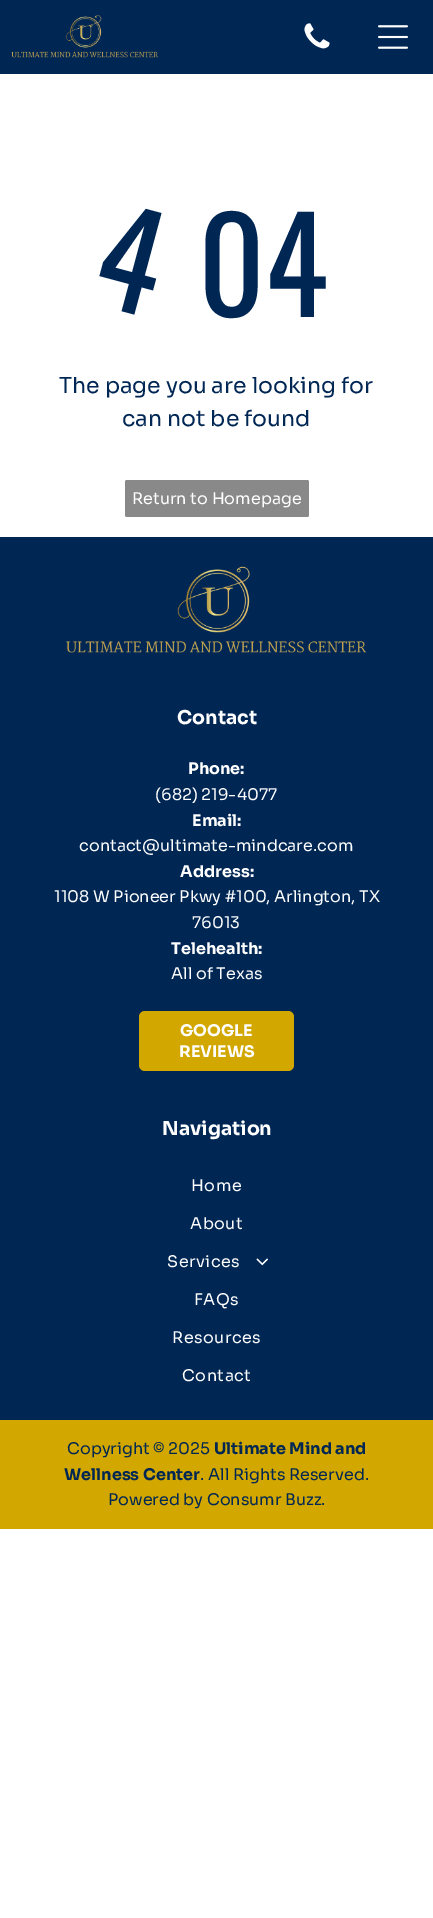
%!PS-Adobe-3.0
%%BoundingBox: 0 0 433 1918
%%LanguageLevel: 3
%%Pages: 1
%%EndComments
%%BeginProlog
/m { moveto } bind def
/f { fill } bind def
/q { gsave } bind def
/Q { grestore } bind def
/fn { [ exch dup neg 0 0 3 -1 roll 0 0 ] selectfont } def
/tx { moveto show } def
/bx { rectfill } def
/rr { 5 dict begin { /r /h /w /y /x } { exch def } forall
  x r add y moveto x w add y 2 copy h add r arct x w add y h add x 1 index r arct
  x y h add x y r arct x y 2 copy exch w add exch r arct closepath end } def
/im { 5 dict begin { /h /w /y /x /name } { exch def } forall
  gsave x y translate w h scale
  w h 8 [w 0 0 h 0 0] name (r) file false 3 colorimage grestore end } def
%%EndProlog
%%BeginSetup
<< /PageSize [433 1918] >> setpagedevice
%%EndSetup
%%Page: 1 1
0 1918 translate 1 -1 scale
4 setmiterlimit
1 setgray
0 0 433 1918 bx
0 0.149 0.329 setrgbcolor
0 0 433 74 bx
(image0.raw) 11 15 148 43 im
(image1.raw) 304 23 26 26 im
(image2.raw) 378 25 30 24 im
/Oswald-Regular 130 fn
q 87 302 translate 15 rotate 0 0 m (4) show Q
(04) 198 317 tx
/Sora-Regular 22 fn
(The page you are looking for) 59 393 tx
(can not be found) 122 426 tx
0.537 setgray
125 480 184 37 2 rr f
/Sora-Regular 16 fn
1 setgray
(Return to Homepage) 132 504 tx
0 0.149 0.329 setrgbcolor
0 537 433 883 bx
(image3.raw) 66 566 300 87 im
/Sora-Bold 19 fn
1 setgray
(Contact) 177 724 tx
/Sora-Bold 16 fn
(Phone:) 188 774 tx
/Sora-Regular 16 fn
(\(682\) 219-4077) 155 800 tx
/Sora-Bold 16 fn
(Email:) 192 826 tx
/Sora-Regular 16 fn
(contact@ultimate-mindcare.com) 79 851 tx
/Sora-Bold 16 fn
(Address:) 180 877 tx
/Sora-Regular 16 fn
(1108 W Pioneer Pkwy #100, Arlington, TX) 54 902 tx
(76013) 192 928 tx
/Sora-Bold 16 fn
(Telehealth:) 171 954 tx
/Sora-Regular 16 fn
(All of Texas) 171 979 tx
0.82 0.655 0 setrgbcolor
139 1011 155 60 6 rr f
/Sora-Bold 16 fn
1 setgray
(GOOGLE) 180 1036 tx
(REVIEWS) 179 1057 tx
/Sora-Bold 19 fn
(Navigation) 162 1135 tx
/Sora-Regular 16 fn
191 1191 m 0.5 0 (Home) ashow
190 1229 m 0.5 0 (About) ashow
167 1267 m 0.5 0 (Services) ashow
(image4.raw) 256 1258 12 8 im
194 1305 m 0.5 0 (FAQs) ashow
172 1343 m 0.5 0 (Resources) ashow
182 1381 m 0.5 0 (Contact) ashow
0.82 0.655 0 setrgbcolor
0 1420 433 109 bx
0 0.149 0.329 setrgbcolor
(Copyright © 2025) 67 1454 tx
/Sora-Bold 16 fn
(Ultimate Mind and) 214 1454 tx
(Wellness Center) 64 1480 tx
/Sora-Regular 16 fn
(. All Rights Reserved.) 200 1480 tx
(Powered by Consumr Buzz.) 108 1505 tx
showpage
%%EOF
